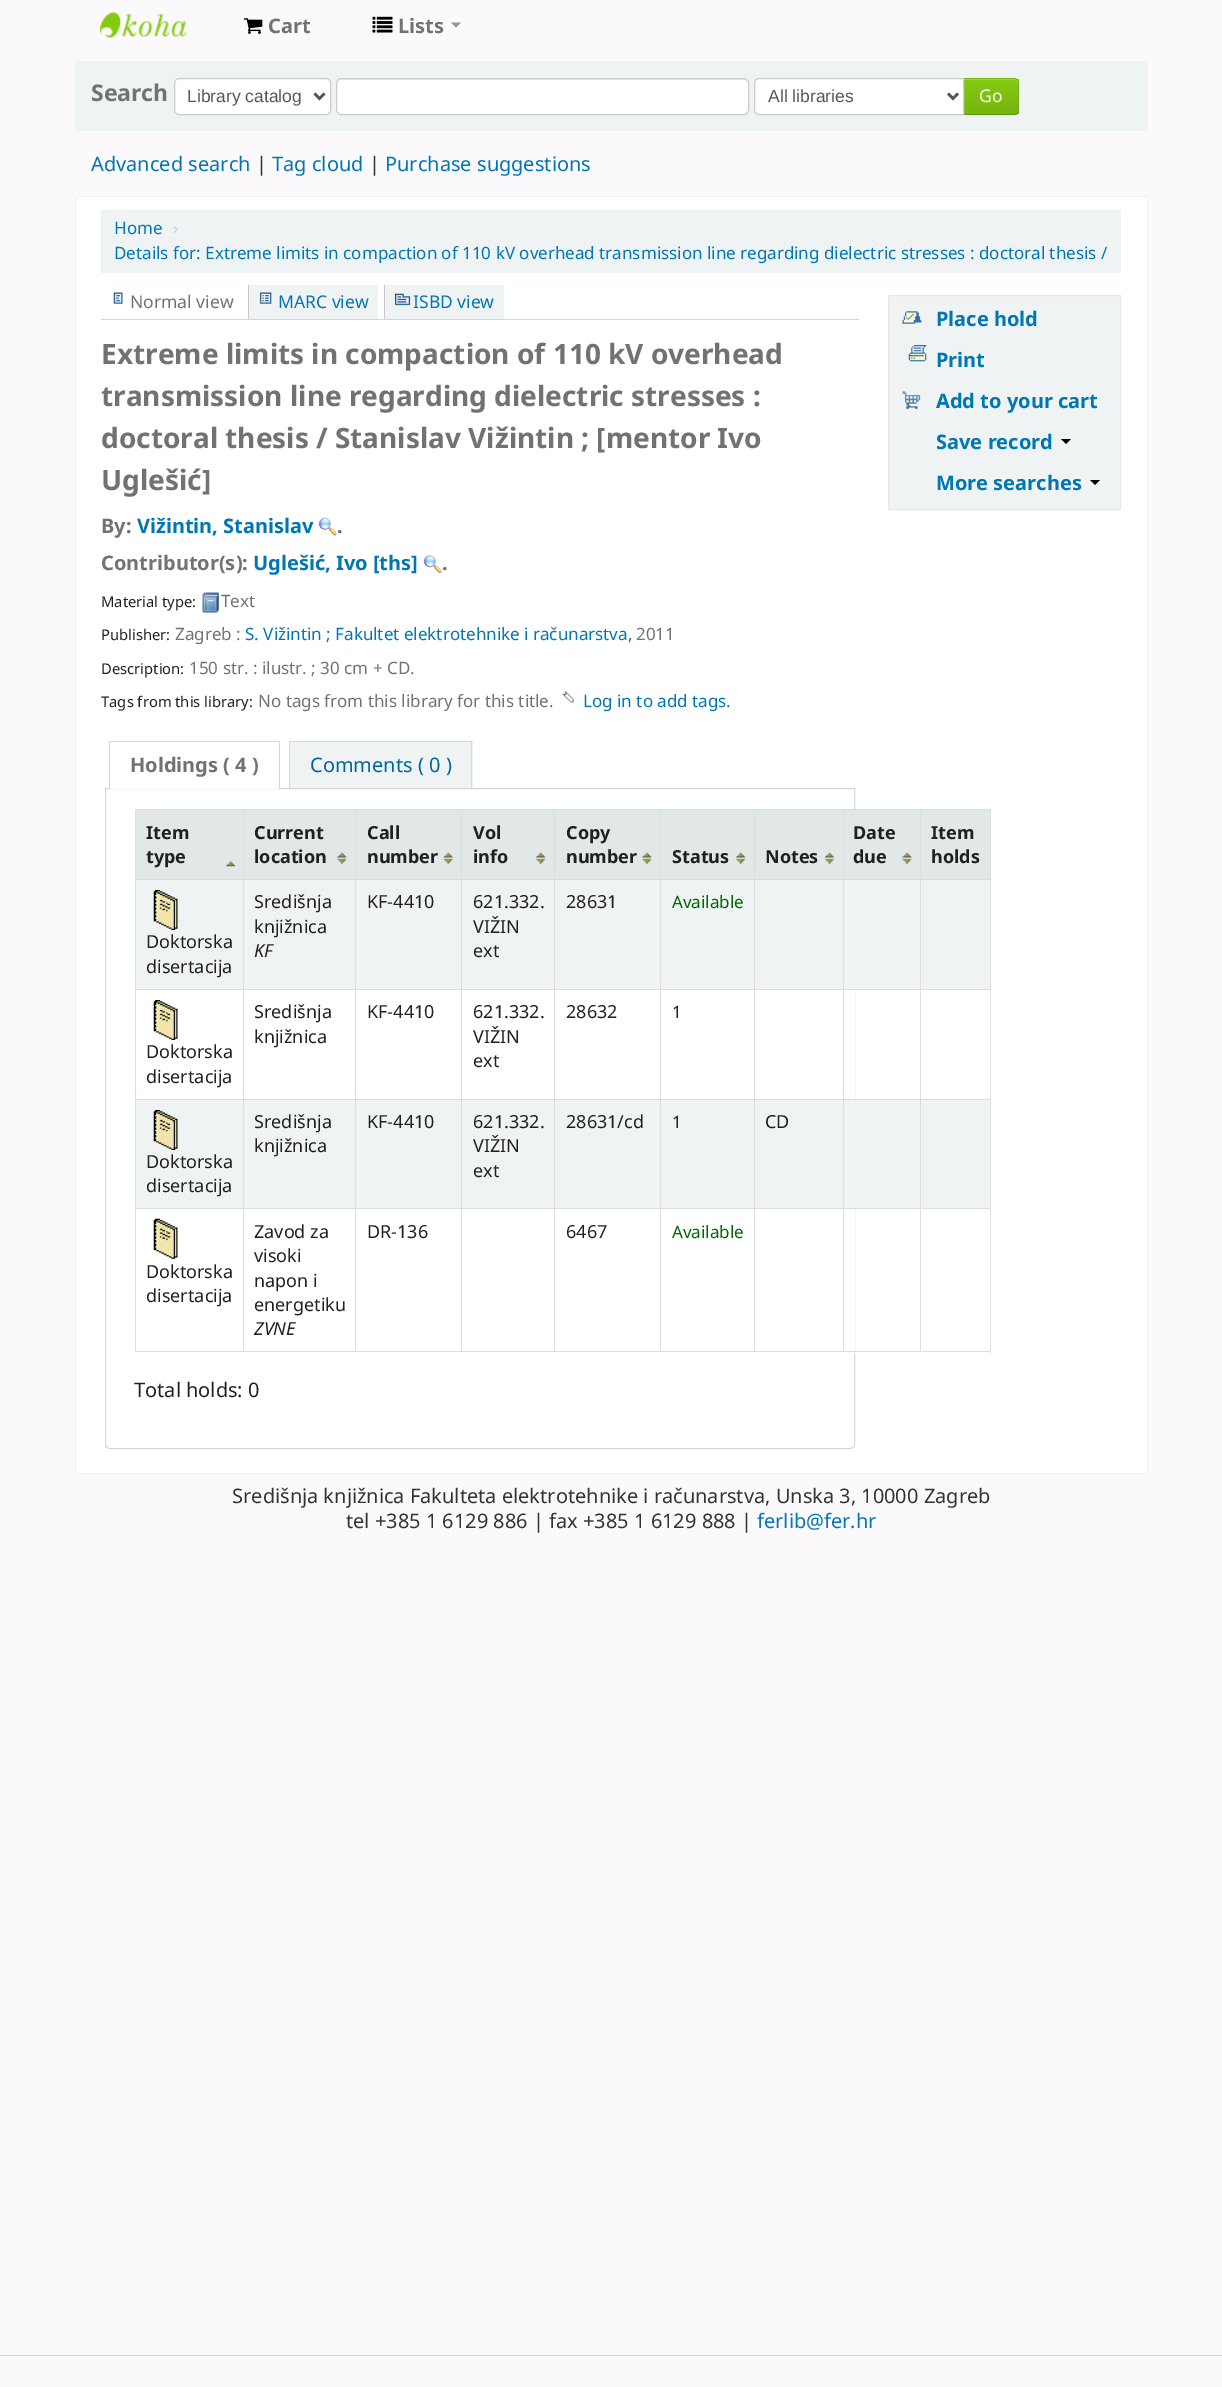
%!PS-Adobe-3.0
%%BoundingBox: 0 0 1222 2387
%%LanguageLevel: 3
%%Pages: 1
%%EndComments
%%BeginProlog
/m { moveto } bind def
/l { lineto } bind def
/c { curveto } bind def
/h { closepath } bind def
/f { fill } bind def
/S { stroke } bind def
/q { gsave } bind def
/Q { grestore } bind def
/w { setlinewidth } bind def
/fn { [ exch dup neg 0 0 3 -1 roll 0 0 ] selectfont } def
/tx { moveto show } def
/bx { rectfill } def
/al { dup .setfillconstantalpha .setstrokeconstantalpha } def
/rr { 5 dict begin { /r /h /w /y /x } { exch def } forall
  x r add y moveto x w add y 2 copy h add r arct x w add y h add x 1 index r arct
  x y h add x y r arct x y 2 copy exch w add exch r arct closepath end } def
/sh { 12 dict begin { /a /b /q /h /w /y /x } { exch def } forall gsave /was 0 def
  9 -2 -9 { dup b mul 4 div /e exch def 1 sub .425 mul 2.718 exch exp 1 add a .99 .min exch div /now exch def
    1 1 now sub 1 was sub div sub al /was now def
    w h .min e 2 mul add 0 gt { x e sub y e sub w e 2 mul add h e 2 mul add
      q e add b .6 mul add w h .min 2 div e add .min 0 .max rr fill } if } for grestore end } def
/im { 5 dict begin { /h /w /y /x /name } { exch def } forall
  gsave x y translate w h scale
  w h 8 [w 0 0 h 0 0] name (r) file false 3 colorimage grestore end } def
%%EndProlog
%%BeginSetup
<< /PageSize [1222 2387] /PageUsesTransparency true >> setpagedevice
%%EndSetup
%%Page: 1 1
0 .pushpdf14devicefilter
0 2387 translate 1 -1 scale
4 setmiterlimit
0.988 0.976 0.988 setrgbcolor
0 0 1222 2387 bx
(image0.raw) 100 12 87 26 im
(image1.raw) 243 18 20 16 im
/NotoSans-Bold 20 fn
0.447 setgray
(Cart) 268 33 tx
(image2.raw) 372 16 21 17 im
(Lists) 398 33 tx
0.6 setgray
451 22.5 m 461 22.5 l 456 27.5 l h f
0.941 0.953 0.953 setrgbcolor
75 61 1073 70 bx
/NotoSans-Bold 23 fn
0.447 setgray
(Search) 91 101 tx
1 setgray
174.5 78.5 156 36 4.5 rr q f Q
0.8 setgray
S
0.333 setgray
2.5 w
314.5 93.5 m 319.5 98.5 l 324.5 93.5 l S
/LiberationSans-Regular 17.5 fn
(Library catalog) 187 102 tx
1 setgray
336 78 413 37 5 rr f
0.925 setgray
341 80 m 744 80 l 746 80 748 82 748 84 c 748 83 l 748 81 746 79 744 79 c 342 79 l 340 79 338 81 338 83 c 338 84 l 338 82 339 80 341 80 c h f
0.8 setgray
1 w
336.5 78.5 412 36 4.5 rr S
0 setgray
963 79 56 37 5 1 0.05 sh
0.522 0.792 0.067 setrgbcolor
963 78 m 1014 78 l 1017 78 1019 80 1019 83 c 1019 110 l 1019 113 1017 115 1014 115 c 963 115 l h f
q
963 78 m 1014 78 l 1017 78 1019 80 1019 83 c 1019 110 l 1019 113 1017 115 1014 115 c 963 115 l h clip newpath
q 964 79 m 1019 79 l 1019 114 l 964 114 l h clip newpath
<< /ShadingType 2 /ColorSpace /DeviceRGB /Coords [991 79 991 114] /Extend [true true] /Function << /FunctionType 2 /Domain [0 1] /C0 [0.522 0.792 0.067] /C1 [0.467 0.71 0.059] /N 1 >> >> shfill Q
Q
0.616 0.835 0.255 setrgbcolor
964 80 m 1014 80 l 1016 80 1018 82 1018 84 c 1018 83 l 1018 81 1016 79 1014 79 c 964 79 l h f
0.1 al
0 setgray
964 79 m 1014 79 l 1017 80 l 1017 79 l 1016 78 1015 78 1014 78 c 963 78 l h f
1017.5 79 m 1019 81 l 1019 111.5 l 1017.5 113.5 l 1016.5 113 l 1017.5 112 1018 111 1018 110 c 1018 82 l 1018 81 1017.5 80 1016.5 79.5 c h f
0.25 al
962 115 m 1014 115 l 1015 115 1017 115 1017 114 c 1017 113 l 1016 114 1015 114 1014 114 c 964 114 l h f
1 al
1 setgray
759 78.5 m 963.5 78.5 l 963.5 114.5 l 759 114.5 l 756.5 114.5 754.5 112.5 754.5 110 c 754.5 83 l 754.5 80.5 756.5 78.5 759 78.5 c h q f Q
0.8 setgray
S
0.333 setgray
2.5 w
948 93.5 m 953 98.5 l 958 93.5 l S
(All libraries) 768 102 tx
/NotoSans-Regular 17.5 fn
1 setgray
(Go) 979 102 tx
/NotoSans-Regular 20 fn
0 0.463 0.698 setrgbcolor
(Advanced search) 91 171 tx
0.2 setgray
(|) 256 171 tx
0 0.463 0.698 setrgbcolor
(Tag cloud) 272 171 tx
0.2 setgray
(|) 369 171 tx
0 0.463 0.698 setrgbcolor
(Purchase suggestions) 385 171 tx
1 setgray
75.5 196.5 m 1147.5 196.5 l 1147.5 1473.5 l 75.5 1473.5 l h q f Q
0.941 0.953 0.953 setrgbcolor
1 w
S
101 210 1020 63 bx
/NotoSans-Regular 17 fn
0 0.463 0.698 setrgbcolor
(Home) 114 234 tx
0.8 setgray
(›) 173 234 tx
0 0.463 0.698 setrgbcolor
(Details for: Extreme limits in compaction of 110 kV overhead transmission line regarding dielectric stresses : doctoral thesis /) 114 259 tx
0.839 setgray
101 319 758 1 bx
(image3.raw) 113 292 10 12 im
/NotoSans-Regular 17.5 fn
0.447 setgray
(Normal view) 130 308 tx
0.941 0.953 0.953 setrgbcolor
249 285 129 34 bx
0.788 setgray
248 285 1 34 bx
(image4.raw) 259 292 13 12 im
0 0.463 0.698 setrgbcolor
(MARC view) 278 308 tx
0.941 0.953 0.953 setrgbcolor
385 285 119 34 bx
0.788 setgray
384 285 1 34 bx
(image5.raw) 395 293 16 13 im
0 0.463 0.698 setrgbcolor
(ISBD view) 413 308 tx
/NotoSans-Bold 28 fn
0.447 setgray
(Extreme limits in compaction of 110 kV overhead) 101 364 tx
(transmission line regarding dielectric stresses :) 101 406 tx
(doctoral thesis / Stanislav Vižintin ; [mentor Ivo) 101 448 tx
(Uglešić]) 101 490 tx
/NotoSans-Bold 20 fn
(By:) 101 533 tx
0 0.463 0.698 setrgbcolor
(Vižintin, Stanislav) 137 533 tx
(image6.raw) 318 517 19 19 im
0.447 setgray
(.) 337 533 tx
(Contributor\(s\):) 101 570 tx
0 0.463 0.698 setrgbcolor
(Uglešić, Ivo [ths]) 253 570 tx
(image7.raw) 423 555 19 18 im
0.447 setgray
(.) 442 570 tx
/NotoSans-Regular 14.75 fn
0.125 setgray
(Material type:) 101 607 tx
(image8.raw) 202 592 17 21 im
/NotoSans-Regular 17 fn
0.447 setgray
(Text) 221 607 tx
/NotoSans-Regular 14.75 fn
0.125 setgray
(Publisher:) 101 640 tx
/NotoSans-Regular 17 fn
0.447 setgray
(Zagreb :) 175 640 tx
0 0.463 0.698 setrgbcolor
(S. Vižintin ; Fakultet elektrotehnike i računarstva,) 245 640 tx
0.447 setgray
(2011) 636 640 tx
/NotoSans-Regular 14.75 fn
0.125 setgray
(Description:) 101 674 tx
/NotoSans-Regular 17 fn
0.447 setgray
(150 str. : ilustr. ; 30 cm + CD.) 189 674 tx
/NotoSans-Regular 14.75 fn
0.125 setgray
(Tags from this library:) 101 707 tx
/NotoSans-Regular 17 fn
0.447 setgray
(No tags from this library for this title.) 258 707 tx
(image9.raw) 562 691 12 12 im
0 0.463 0.698 setrgbcolor
(Log in to add tags.) 583 707 tx
0.847 setgray
105.5 788.5 m 854.5 788.5 l 854.5 1444 l 854.5 1446.5 852.5 1448.5 850 1448.5 c 110 1448.5 l 107.5 1448.5 105.5 1446.5 105.5 1444 c h S
1 setgray
110 788 169 1 bx
0.847 setgray
109 741 171 1 bx
279 741 1 48 bx
109 741 1 48 bx
/NotoSans-Bold 20 fn
0.447 setgray
(Holdings \( 4 \)) 130 772 tx
0.941 0.953 0.953 setrgbcolor
290 742 183 46 bx
0.847 setgray
289 741 184 1 bx
471 741 1 47 bx
289 741 1 47 bx
/NotoSans-Regular 20 fn
0 0.4 0.6 setrgbcolor
(Comments \( 0 \)) 310 772 tx
1 setgray
854 990 1 363 bx
0.867 setgray
135 809 856 1 bx
990 809 1 544 bx
135 1351 856 1 bx
0.886 0.91 0.91 setrgbcolor
136 810 107 69 bx
(image10.raw) 226 861 10 6 im
0.867 setgray
135 810 1 69 bx
/NotoSans-Bold 18 fn
0.125 setgray
(Item) 146 839 tx
(type) 146 863 tx
0.886 0.91 0.91 setrgbcolor
244 810 111 69 bx
(image11.raw) 337 852 10 12 im
0.867 setgray
243 810 1 69 bx
0.125 setgray
(Current) 254 839 tx
(location) 254 863 tx
0.886 0.91 0.91 setrgbcolor
356 810 105 69 bx
(image12.raw) 443 852 10 12 im
0.867 setgray
355 810 1 69 bx
0.125 setgray
(Call) 367 839 tx
(number) 367 863 tx
0.886 0.91 0.91 setrgbcolor
462 810 92 69 bx
(image13.raw) 536 852 10 12 im
0.867 setgray
461 810 1 69 bx
0.125 setgray
(Vol) 473 839 tx
(info) 473 863 tx
0.886 0.91 0.91 setrgbcolor
555 810 105 69 bx
(image11.raw) 642 852 10 12 im
0.867 setgray
554 810 1 69 bx
0.125 setgray
(Copy) 566 839 tx
(number) 566 863 tx
0.886 0.91 0.91 setrgbcolor
661 810 93 69 bx
(image14.raw) 736 852 10 12 im
0.867 setgray
660 810 1 69 bx
0.125 setgray
(Status) 672 863 tx
0.886 0.91 0.91 setrgbcolor
755 810 88 69 bx
(image15.raw) 824 852 10 12 im
0.867 setgray
754 810 1 69 bx
0.125 setgray
(Notes) 765 863 tx
0.886 0.91 0.91 setrgbcolor
844 810 76 69 bx
(image16.raw) 902 852 10 12 im
0.867 setgray
843 810 1 69 bx
0.125 setgray
(Date) 853 839 tx
(due) 853 863 tx
0.886 0.91 0.91 setrgbcolor
921 810 69 69 bx
0.867 setgray
920 810 1 69 bx
0.125 setgray
(Item) 931 839 tx
(holds) 931 863 tx
0.941 0.953 0.953 setrgbcolor
244 880 111 109 bx
0.867 setgray
135 879 855 1 bx
243 879 1 110 bx
/NotoSans-Regular 18 fn
0.125 setgray
(Središnja) 254 908 tx
(knjižnica) 254 933 tx
/NotoSans-Italic 18 fn
(KF) 254 957 tx
0.941 0.953 0.953 setrgbcolor
356 880 105 109 bx
0.867 setgray
355 879 1 110 bx
/NotoSans-Regular 18 fn
0.125 setgray
(KF-4410) 367 908 tx
0.941 0.953 0.953 setrgbcolor
462 880 92 109 bx
0.867 setgray
461 879 1 110 bx
0.125 setgray
(621.332.) 473 908 tx
(VIŽIN) 473 933 tx
(ext) 473 957 tx
0.941 0.953 0.953 setrgbcolor
555 880 105 109 bx
0.867 setgray
554 879 1 110 bx
0.125 setgray
(28631) 566 908 tx
0.941 0.953 0.953 setrgbcolor
661 880 93 109 bx
0.867 setgray
660 879 1 110 bx
/NotoSans-Regular 17 fn
0 0.4 0 setrgbcolor
(Available) 672 908 tx
0.941 0.953 0.953 setrgbcolor
755 880 88 109 bx
0.867 setgray
754 879 1 110 bx
0.941 0.953 0.953 setrgbcolor
844 880 76 109 bx
0.867 setgray
843 879 1 110 bx
0.941 0.953 0.953 setrgbcolor
921 880 69 109 bx
0.867 setgray
920 879 1 110 bx
0.941 0.953 0.953 setrgbcolor
136 880 107 109 bx
0.867 setgray
135 879 1 110 bx
(image17.raw) 153 890 25 40 im
/NotoSans-Regular 18 fn
0.125 setgray
(Doktorska) 146 948 tx
(disertacija) 146 973 tx
0.867 setgray
135 989 855 1 bx
243 989 1 110 bx
0.125 setgray
(Središnja) 254 1018 tx
(knjižnica) 254 1043 tx
0.867 setgray
355 989 1 110 bx
0.125 setgray
(KF-4410) 367 1018 tx
0.867 setgray
461 989 1 110 bx
0.125 setgray
(621.332.) 473 1018 tx
(VIŽIN) 473 1043 tx
(ext) 473 1067 tx
0.867 setgray
554 989 1 110 bx
0.125 setgray
(28632) 566 1018 tx
0.867 setgray
660 989 1 110 bx
/NotoSans-Regular 17 fn
0.125 setgray
(1) 672 1018 tx
0.867 setgray
754 989 1 110 bx
843 989 1 110 bx
920 989 1 110 bx
135 989 1 110 bx
(image18.raw) 153 1000 25 40 im
/NotoSans-Regular 18 fn
0.125 setgray
(Doktorska) 146 1058 tx
(disertacija) 146 1083 tx
0.941 0.953 0.953 setrgbcolor
244 1100 111 108 bx
0.867 setgray
135 1099 855 1 bx
243 1099 1 109 bx
0.125 setgray
(Središnja) 254 1128 tx
(knjižnica) 254 1152 tx
0.941 0.953 0.953 setrgbcolor
356 1100 105 108 bx
0.867 setgray
355 1099 1 109 bx
0.125 setgray
(KF-4410) 367 1128 tx
0.941 0.953 0.953 setrgbcolor
462 1100 92 108 bx
0.867 setgray
461 1099 1 109 bx
0.125 setgray
(621.332.) 473 1128 tx
(VIŽIN) 473 1152 tx
(ext) 473 1177 tx
0.941 0.953 0.953 setrgbcolor
555 1100 105 108 bx
0.867 setgray
554 1099 1 109 bx
0.125 setgray
(28631/cd) 566 1128 tx
0.941 0.953 0.953 setrgbcolor
661 1100 93 108 bx
0.867 setgray
660 1099 1 109 bx
/NotoSans-Regular 17 fn
0.125 setgray
(1) 672 1128 tx
0.941 0.953 0.953 setrgbcolor
755 1100 88 108 bx
0.867 setgray
754 1099 1 109 bx
/NotoSans-Regular 18 fn
0.125 setgray
(CD) 765 1128 tx
0.941 0.953 0.953 setrgbcolor
844 1100 76 108 bx
0.867 setgray
843 1099 1 109 bx
0.941 0.953 0.953 setrgbcolor
921 1100 69 108 bx
0.867 setgray
920 1099 1 109 bx
0.941 0.953 0.953 setrgbcolor
136 1100 107 108 bx
0.867 setgray
135 1099 1 109 bx
(image17.raw) 153 1110 25 40 im
0.125 setgray
(Doktorska) 146 1168 tx
(disertacija) 146 1192 tx
0.867 setgray
135 1208 855 1 bx
243 1208 1 143 bx
0.125 setgray
(Zavod za) 254 1238 tx
(visoki) 254 1262 tx
(napon i) 254 1287 tx
(energetiku) 254 1311 tx
/NotoSans-Italic 18 fn
(ZVNE) 254 1335 tx
0.867 setgray
355 1208 1 143 bx
/NotoSans-Regular 18 fn
0.125 setgray
(DR-136) 367 1238 tx
0.867 setgray
461 1208 1 143 bx
554 1208 1 143 bx
0.125 setgray
(6467) 566 1238 tx
0.867 setgray
660 1208 1 143 bx
/NotoSans-Regular 17 fn
0 0.4 0 setrgbcolor
(Available) 672 1238 tx
0.867 setgray
754 1208 1 143 bx
843 1208 1 143 bx
920 1208 1 143 bx
135 1208 1 143 bx
(image19.raw) 153 1218 25 41 im
/NotoSans-Regular 18 fn
0.125 setgray
(Doktorska) 146 1278 tx
(disertacija) 146 1302 tx
/NotoSans-Regular 20 fn
(Total holds: 0) 134 1397 tx
0.941 0.953 0.953 setrgbcolor
888.5 295.5 m 1120.5 295.5 l 1120.5 509.5 l 888.5 509.5 l h q f Q
0.91 setgray
S
(image20.raw) 902 311 20 13 im
/NotoSans-Bold 20 fn
0 0.463 0.698 setrgbcolor
(Place hold) 936 326 tx
(image21.raw) 908 345 19 17 im
(Print) 936 367 tx
(image22.raw) 902 391 19 18 im
(Add to your cart) 936 408 tx
(Save record) 936 449 tx
0 setgray
1061 439 m 1071 439 l 1066 444 l h f
0 0.463 0.698 setrgbcolor
(More searches) 936 490 tx
0 setgray
1090 480 m 1100 480 l 1095 485 l h f
/NotoSans-Regular 20 fn
0.2 setgray
(Središnja knjižnica Fakulteta elektrotehnike i računarstva, Unska 3, 10000 Zagreb) 232 1503 tx
(tel +385 1 6129 886 | fax +385 1 6129 888 |) 346 1528 tx
0 0.463 0.698 setrgbcolor
(ferlib@fer.hr) 757 1528 tx
0.831 setgray
0 2355 1222 1 bx
.poppdf14devicefilter showpage
%%EOF
